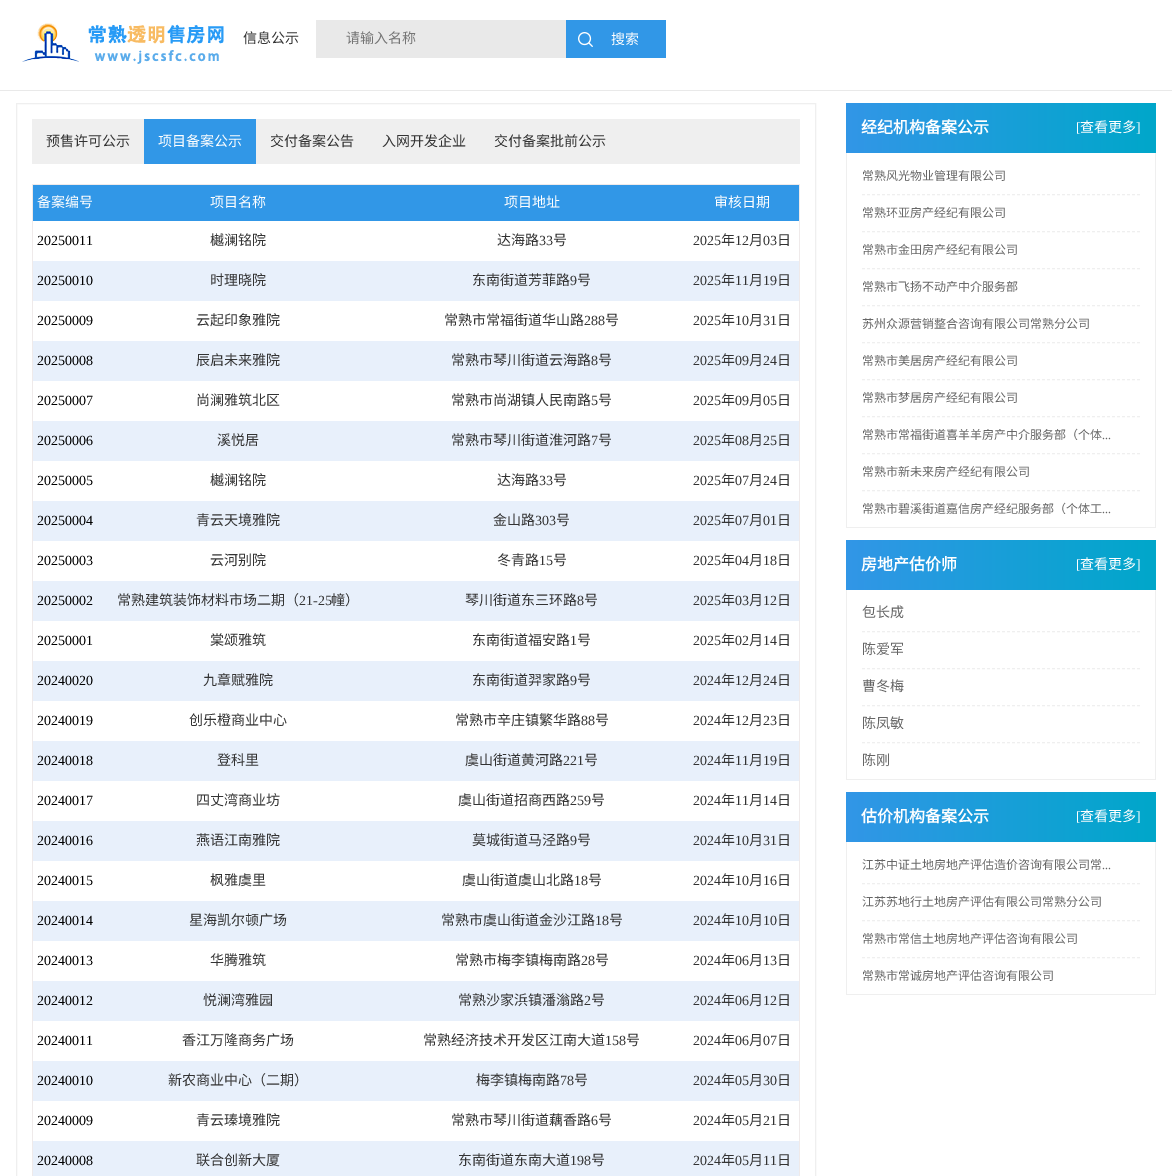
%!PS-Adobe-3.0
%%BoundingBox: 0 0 1172 1176
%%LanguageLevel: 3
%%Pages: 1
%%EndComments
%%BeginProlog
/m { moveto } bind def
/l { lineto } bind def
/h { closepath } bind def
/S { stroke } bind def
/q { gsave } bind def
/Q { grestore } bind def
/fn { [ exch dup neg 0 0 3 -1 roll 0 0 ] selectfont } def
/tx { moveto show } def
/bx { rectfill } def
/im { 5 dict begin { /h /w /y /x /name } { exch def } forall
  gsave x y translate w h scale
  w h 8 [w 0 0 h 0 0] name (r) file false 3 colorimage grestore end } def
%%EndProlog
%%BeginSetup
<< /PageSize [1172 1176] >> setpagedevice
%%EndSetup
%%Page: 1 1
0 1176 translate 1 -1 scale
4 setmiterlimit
1 setgray
0 0 1172 1176 bx
0.914 setgray
0 90 1172 1 bx
(image0.raw) 22 23 202 41 im
/NotoSansCJKSC-Regular 14 fn
0.2 setgray
(信息公示) 243 43 tx
0.914 setgray
316 20 250 38 bx
0.459 setgray
(请输入名称) 346 43 tx
0.192 0.592 0.906 setrgbcolor
566 20 100 38 bx
(image1.raw) 578 32 15 15 im
1 setgray
(搜索) 611 44 tx
0.937 setgray
16.5 103.5 799 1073 rectstroke
32 119 768 45 bx
0.2 setgray
(预售许可公示) 46 146 tx
0.192 0.592 0.906 setrgbcolor
144 119 112 45 bx
1 setgray
(项目备案公示) 158 146 tx
0.2 setgray
(交付备案公告) 270 146 tx
(入网开发企业) 382 146 tx
(交付备案批前公示) 494 146 tx
0.937 0.918 0.918 setrgbcolor
32 184 768 1 bx
799 184 1 992 bx
32 184 1 992 bx
0.192 0.592 0.906 setrgbcolor
33 185 766 36 bx
1 setgray
(备案编号) 37 207 tx
(项目名称) 210 207 tx
(项目地址) 504 207 tx
(审核日期) 714 207 tx
/LiberationSerif-Regular 14 fn
0 setgray
(20250011) 37 245 tx
/NotoSansCJKSC-Regular 14 fn
0.2 setgray
(樾澜铭院) 210 245 tx
(达海路) 497 245 tx
/LiberationSerif-Regular 14 fn
(33) 539 245 tx
/NotoSansCJKSC-Regular 14 fn
(号) 553 245 tx
/LiberationSerif-Regular 14 fn
(2025) 693 245 tx
/NotoSansCJKSC-Regular 14 fn
(年) 721 245 tx
/LiberationSerif-Regular 14 fn
(12) 735 245 tx
/NotoSansCJKSC-Regular 14 fn
(月) 749 245 tx
/LiberationSerif-Regular 14 fn
(03) 763 245 tx
/NotoSansCJKSC-Regular 14 fn
(日) 777 245 tx
0.91 0.941 0.984 setrgbcolor
33 261 766 40 bx
/LiberationSerif-Regular 14 fn
0 setgray
(20250010) 37 285 tx
/NotoSansCJKSC-Regular 14 fn
0.2 setgray
(时理晓院) 210 285 tx
(东南街道芳菲路) 472 285 tx
/LiberationSerif-Regular 14 fn
(9) 570 285 tx
/NotoSansCJKSC-Regular 14 fn
(号) 577 285 tx
/LiberationSerif-Regular 14 fn
(2025) 693 285 tx
/NotoSansCJKSC-Regular 14 fn
(年) 721 285 tx
/LiberationSerif-Regular 14 fn
(11) 735 285 tx
/NotoSansCJKSC-Regular 14 fn
(月) 749 285 tx
/LiberationSerif-Regular 14 fn
(19) 763 285 tx
/NotoSansCJKSC-Regular 14 fn
(日) 777 285 tx
/LiberationSerif-Regular 14 fn
0 setgray
(20250009) 37 325 tx
/NotoSansCJKSC-Regular 14 fn
0.2 setgray
(云起印象雅院) 196 325 tx
(常熟市常福街道华山路) 444 325 tx
/LiberationSerif-Regular 14 fn
(288) 584 325 tx
/NotoSansCJKSC-Regular 14 fn
(号) 605 325 tx
/LiberationSerif-Regular 14 fn
(2025) 693 325 tx
/NotoSansCJKSC-Regular 14 fn
(年) 721 325 tx
/LiberationSerif-Regular 14 fn
(10) 735 325 tx
/NotoSansCJKSC-Regular 14 fn
(月) 749 325 tx
/LiberationSerif-Regular 14 fn
(31) 763 325 tx
/NotoSansCJKSC-Regular 14 fn
(日) 777 325 tx
0.91 0.941 0.984 setrgbcolor
33 341 766 40 bx
/LiberationSerif-Regular 14 fn
0 setgray
(20250008) 37 365 tx
/NotoSansCJKSC-Regular 14 fn
0.2 setgray
(辰启未来雅院) 196 365 tx
(常熟市琴川街道云海路) 451 365 tx
/LiberationSerif-Regular 14 fn
(8) 591 365 tx
/NotoSansCJKSC-Regular 14 fn
(号) 598 365 tx
/LiberationSerif-Regular 14 fn
(2025) 693 365 tx
/NotoSansCJKSC-Regular 14 fn
(年) 721 365 tx
/LiberationSerif-Regular 14 fn
(09) 735 365 tx
/NotoSansCJKSC-Regular 14 fn
(月) 749 365 tx
/LiberationSerif-Regular 14 fn
(24) 763 365 tx
/NotoSansCJKSC-Regular 14 fn
(日) 777 365 tx
/LiberationSerif-Regular 14 fn
0 setgray
(20250007) 37 405 tx
/NotoSansCJKSC-Regular 14 fn
0.2 setgray
(尚澜雅筑北区) 196 405 tx
(常熟市尚湖镇人民南路) 451 405 tx
/LiberationSerif-Regular 14 fn
(5) 591 405 tx
/NotoSansCJKSC-Regular 14 fn
(号) 598 405 tx
/LiberationSerif-Regular 14 fn
(2025) 693 405 tx
/NotoSansCJKSC-Regular 14 fn
(年) 721 405 tx
/LiberationSerif-Regular 14 fn
(09) 735 405 tx
/NotoSansCJKSC-Regular 14 fn
(月) 749 405 tx
/LiberationSerif-Regular 14 fn
(05) 763 405 tx
/NotoSansCJKSC-Regular 14 fn
(日) 777 405 tx
0.91 0.941 0.984 setrgbcolor
33 421 766 40 bx
/LiberationSerif-Regular 14 fn
0 setgray
(20250006) 37 445 tx
/NotoSansCJKSC-Regular 14 fn
0.2 setgray
(溪悦居) 217 445 tx
(常熟市琴川街道淮河路) 451 445 tx
/LiberationSerif-Regular 14 fn
(7) 591 445 tx
/NotoSansCJKSC-Regular 14 fn
(号) 598 445 tx
/LiberationSerif-Regular 14 fn
(2025) 693 445 tx
/NotoSansCJKSC-Regular 14 fn
(年) 721 445 tx
/LiberationSerif-Regular 14 fn
(08) 735 445 tx
/NotoSansCJKSC-Regular 14 fn
(月) 749 445 tx
/LiberationSerif-Regular 14 fn
(25) 763 445 tx
/NotoSansCJKSC-Regular 14 fn
(日) 777 445 tx
/LiberationSerif-Regular 14 fn
0 setgray
(20250005) 37 485 tx
/NotoSansCJKSC-Regular 14 fn
0.2 setgray
(樾澜铭院) 210 485 tx
(达海路) 497 485 tx
/LiberationSerif-Regular 14 fn
(33) 539 485 tx
/NotoSansCJKSC-Regular 14 fn
(号) 553 485 tx
/LiberationSerif-Regular 14 fn
(2025) 693 485 tx
/NotoSansCJKSC-Regular 14 fn
(年) 721 485 tx
/LiberationSerif-Regular 14 fn
(07) 735 485 tx
/NotoSansCJKSC-Regular 14 fn
(月) 749 485 tx
/LiberationSerif-Regular 14 fn
(24) 763 485 tx
/NotoSansCJKSC-Regular 14 fn
(日) 777 485 tx
0.91 0.941 0.984 setrgbcolor
33 501 766 40 bx
/LiberationSerif-Regular 14 fn
0 setgray
(20250004) 37 525 tx
/NotoSansCJKSC-Regular 14 fn
0.2 setgray
(青云天境雅院) 196 525 tx
(金山路) 493 525 tx
/LiberationSerif-Regular 14 fn
(303) 535 525 tx
/NotoSansCJKSC-Regular 14 fn
(号) 556 525 tx
/LiberationSerif-Regular 14 fn
(2025) 693 525 tx
/NotoSansCJKSC-Regular 14 fn
(年) 721 525 tx
/LiberationSerif-Regular 14 fn
(07) 735 525 tx
/NotoSansCJKSC-Regular 14 fn
(月) 749 525 tx
/LiberationSerif-Regular 14 fn
(01) 763 525 tx
/NotoSansCJKSC-Regular 14 fn
(日) 777 525 tx
/LiberationSerif-Regular 14 fn
0 setgray
(20250003) 37 565 tx
/NotoSansCJKSC-Regular 14 fn
0.2 setgray
(云河别院) 210 565 tx
(冬青路) 497 565 tx
/LiberationSerif-Regular 14 fn
(15) 539 565 tx
/NotoSansCJKSC-Regular 14 fn
(号) 553 565 tx
/LiberationSerif-Regular 14 fn
(2025) 693 565 tx
/NotoSansCJKSC-Regular 14 fn
(年) 721 565 tx
/LiberationSerif-Regular 14 fn
(04) 735 565 tx
/NotoSansCJKSC-Regular 14 fn
(月) 749 565 tx
/LiberationSerif-Regular 14 fn
(18) 763 565 tx
/NotoSansCJKSC-Regular 14 fn
(日) 777 565 tx
0.91 0.941 0.984 setrgbcolor
33 581 766 40 bx
/LiberationSerif-Regular 14 fn
0 setgray
(20250002) 37 605 tx
/NotoSansCJKSC-Regular 14 fn
0.2 setgray
(常熟建筑装饰材料市场二期（) 117 605 tx
/LiberationSerif-Regular 14 fn
(21-25) 299 605 tx
/NotoSansCJKSC-Regular 14 fn
(幢）) 331 605 tx
(琴川街道东三环路) 465 605 tx
/LiberationSerif-Regular 14 fn
(8) 577 605 tx
/NotoSansCJKSC-Regular 14 fn
(号) 584 605 tx
/LiberationSerif-Regular 14 fn
(2025) 693 605 tx
/NotoSansCJKSC-Regular 14 fn
(年) 721 605 tx
/LiberationSerif-Regular 14 fn
(03) 735 605 tx
/NotoSansCJKSC-Regular 14 fn
(月) 749 605 tx
/LiberationSerif-Regular 14 fn
(12) 763 605 tx
/NotoSansCJKSC-Regular 14 fn
(日) 777 605 tx
/LiberationSerif-Regular 14 fn
0 setgray
(20250001) 37 645 tx
/NotoSansCJKSC-Regular 14 fn
0.2 setgray
(棠颂雅筑) 210 645 tx
(东南街道福安路) 472 645 tx
/LiberationSerif-Regular 14 fn
(1) 570 645 tx
/NotoSansCJKSC-Regular 14 fn
(号) 577 645 tx
/LiberationSerif-Regular 14 fn
(2025) 693 645 tx
/NotoSansCJKSC-Regular 14 fn
(年) 721 645 tx
/LiberationSerif-Regular 14 fn
(02) 735 645 tx
/NotoSansCJKSC-Regular 14 fn
(月) 749 645 tx
/LiberationSerif-Regular 14 fn
(14) 763 645 tx
/NotoSansCJKSC-Regular 14 fn
(日) 777 645 tx
0.91 0.941 0.984 setrgbcolor
33 661 766 40 bx
/LiberationSerif-Regular 14 fn
0 setgray
(20240020) 37 685 tx
/NotoSansCJKSC-Regular 14 fn
0.2 setgray
(九章赋雅院) 203 685 tx
(东南街道羿家路) 472 685 tx
/LiberationSerif-Regular 14 fn
(9) 570 685 tx
/NotoSansCJKSC-Regular 14 fn
(号) 577 685 tx
/LiberationSerif-Regular 14 fn
(2024) 693 685 tx
/NotoSansCJKSC-Regular 14 fn
(年) 721 685 tx
/LiberationSerif-Regular 14 fn
(12) 735 685 tx
/NotoSansCJKSC-Regular 14 fn
(月) 749 685 tx
/LiberationSerif-Regular 14 fn
(24) 763 685 tx
/NotoSansCJKSC-Regular 14 fn
(日) 777 685 tx
/LiberationSerif-Regular 14 fn
0 setgray
(20240019) 37 725 tx
/NotoSansCJKSC-Regular 14 fn
0.2 setgray
(创乐橙商业中心) 189 725 tx
(常熟市辛庄镇繁华路) 455 725 tx
/LiberationSerif-Regular 14 fn
(88) 581 725 tx
/NotoSansCJKSC-Regular 14 fn
(号) 595 725 tx
/LiberationSerif-Regular 14 fn
(2024) 693 725 tx
/NotoSansCJKSC-Regular 14 fn
(年) 721 725 tx
/LiberationSerif-Regular 14 fn
(12) 735 725 tx
/NotoSansCJKSC-Regular 14 fn
(月) 749 725 tx
/LiberationSerif-Regular 14 fn
(23) 763 725 tx
/NotoSansCJKSC-Regular 14 fn
(日) 777 725 tx
0.91 0.941 0.984 setrgbcolor
33 741 766 40 bx
/LiberationSerif-Regular 14 fn
0 setgray
(20240018) 37 765 tx
/NotoSansCJKSC-Regular 14 fn
0.2 setgray
(登科里) 217 765 tx
(虞山街道黄河路) 465 765 tx
/LiberationSerif-Regular 14 fn
(221) 563 765 tx
/NotoSansCJKSC-Regular 14 fn
(号) 584 765 tx
/LiberationSerif-Regular 14 fn
(2024) 693 765 tx
/NotoSansCJKSC-Regular 14 fn
(年) 721 765 tx
/LiberationSerif-Regular 14 fn
(11) 735 765 tx
/NotoSansCJKSC-Regular 14 fn
(月) 749 765 tx
/LiberationSerif-Regular 14 fn
(19) 763 765 tx
/NotoSansCJKSC-Regular 14 fn
(日) 777 765 tx
/LiberationSerif-Regular 14 fn
0 setgray
(20240017) 37 805 tx
/NotoSansCJKSC-Regular 14 fn
0.2 setgray
(四丈湾商业坊) 196 805 tx
(虞山街道招商西路) 458 805 tx
/LiberationSerif-Regular 14 fn
(259) 570 805 tx
/NotoSansCJKSC-Regular 14 fn
(号) 591 805 tx
/LiberationSerif-Regular 14 fn
(2024) 693 805 tx
/NotoSansCJKSC-Regular 14 fn
(年) 721 805 tx
/LiberationSerif-Regular 14 fn
(11) 735 805 tx
/NotoSansCJKSC-Regular 14 fn
(月) 749 805 tx
/LiberationSerif-Regular 14 fn
(14) 763 805 tx
/NotoSansCJKSC-Regular 14 fn
(日) 777 805 tx
0.91 0.941 0.984 setrgbcolor
33 821 766 40 bx
/LiberationSerif-Regular 14 fn
0 setgray
(20240016) 37 845 tx
/NotoSansCJKSC-Regular 14 fn
0.2 setgray
(燕语江南雅院) 196 845 tx
(莫城街道马泾路) 472 845 tx
/LiberationSerif-Regular 14 fn
(9) 570 845 tx
/NotoSansCJKSC-Regular 14 fn
(号) 577 845 tx
/LiberationSerif-Regular 14 fn
(2024) 693 845 tx
/NotoSansCJKSC-Regular 14 fn
(年) 721 845 tx
/LiberationSerif-Regular 14 fn
(10) 735 845 tx
/NotoSansCJKSC-Regular 14 fn
(月) 749 845 tx
/LiberationSerif-Regular 14 fn
(31) 763 845 tx
/NotoSansCJKSC-Regular 14 fn
(日) 777 845 tx
/LiberationSerif-Regular 14 fn
0 setgray
(20240015) 37 885 tx
/NotoSansCJKSC-Regular 14 fn
0.2 setgray
(枫雅虞里) 210 885 tx
(虞山街道虞山北路) 462 885 tx
/LiberationSerif-Regular 14 fn
(18) 574 885 tx
/NotoSansCJKSC-Regular 14 fn
(号) 588 885 tx
/LiberationSerif-Regular 14 fn
(2024) 693 885 tx
/NotoSansCJKSC-Regular 14 fn
(年) 721 885 tx
/LiberationSerif-Regular 14 fn
(10) 735 885 tx
/NotoSansCJKSC-Regular 14 fn
(月) 749 885 tx
/LiberationSerif-Regular 14 fn
(16) 763 885 tx
/NotoSansCJKSC-Regular 14 fn
(日) 777 885 tx
0.91 0.941 0.984 setrgbcolor
33 901 766 40 bx
/LiberationSerif-Regular 14 fn
0 setgray
(20240014) 37 925 tx
/NotoSansCJKSC-Regular 14 fn
0.2 setgray
(星海凯尔顿广场) 189 925 tx
(常熟市虞山街道金沙江路) 441 925 tx
/LiberationSerif-Regular 14 fn
(18) 595 925 tx
/NotoSansCJKSC-Regular 14 fn
(号) 609 925 tx
/LiberationSerif-Regular 14 fn
(2024) 693 925 tx
/NotoSansCJKSC-Regular 14 fn
(年) 721 925 tx
/LiberationSerif-Regular 14 fn
(10) 735 925 tx
/NotoSansCJKSC-Regular 14 fn
(月) 749 925 tx
/LiberationSerif-Regular 14 fn
(10) 763 925 tx
/NotoSansCJKSC-Regular 14 fn
(日) 777 925 tx
/LiberationSerif-Regular 14 fn
0 setgray
(20240013) 37 965 tx
/NotoSansCJKSC-Regular 14 fn
0.2 setgray
(华腾雅筑) 210 965 tx
(常熟市梅李镇梅南路) 455 965 tx
/LiberationSerif-Regular 14 fn
(28) 581 965 tx
/NotoSansCJKSC-Regular 14 fn
(号) 595 965 tx
/LiberationSerif-Regular 14 fn
(2024) 693 965 tx
/NotoSansCJKSC-Regular 14 fn
(年) 721 965 tx
/LiberationSerif-Regular 14 fn
(06) 735 965 tx
/NotoSansCJKSC-Regular 14 fn
(月) 749 965 tx
/LiberationSerif-Regular 14 fn
(13) 763 965 tx
/NotoSansCJKSC-Regular 14 fn
(日) 777 965 tx
0.91 0.941 0.984 setrgbcolor
33 981 766 40 bx
/LiberationSerif-Regular 14 fn
0 setgray
(20240012) 37 1005 tx
/NotoSansCJKSC-Regular 14 fn
0.2 setgray
(悦澜湾雅园) 203 1005 tx
(常熟沙家浜镇潘滃路) 458 1005 tx
/LiberationSerif-Regular 14 fn
(2) 584 1005 tx
/NotoSansCJKSC-Regular 14 fn
(号) 591 1005 tx
/LiberationSerif-Regular 14 fn
(2024) 693 1005 tx
/NotoSansCJKSC-Regular 14 fn
(年) 721 1005 tx
/LiberationSerif-Regular 14 fn
(06) 735 1005 tx
/NotoSansCJKSC-Regular 14 fn
(月) 749 1005 tx
/LiberationSerif-Regular 14 fn
(12) 763 1005 tx
/NotoSansCJKSC-Regular 14 fn
(日) 777 1005 tx
/LiberationSerif-Regular 14 fn
0 setgray
(20240011) 37 1045 tx
/NotoSansCJKSC-Regular 14 fn
0.2 setgray
(香江万隆商务广场) 182 1045 tx
(常熟经济技术开发区江南大道) 423 1045 tx
/LiberationSerif-Regular 14 fn
(158) 605 1045 tx
/NotoSansCJKSC-Regular 14 fn
(号) 626 1045 tx
/LiberationSerif-Regular 14 fn
(2024) 693 1045 tx
/NotoSansCJKSC-Regular 14 fn
(年) 721 1045 tx
/LiberationSerif-Regular 14 fn
(06) 735 1045 tx
/NotoSansCJKSC-Regular 14 fn
(月) 749 1045 tx
/LiberationSerif-Regular 14 fn
(07) 763 1045 tx
/NotoSansCJKSC-Regular 14 fn
(日) 777 1045 tx
0.91 0.941 0.984 setrgbcolor
33 1061 766 40 bx
/LiberationSerif-Regular 14 fn
0 setgray
(20240010) 37 1085 tx
/NotoSansCJKSC-Regular 14 fn
0.2 setgray
(新农商业中心（二期）) 168 1085 tx
(梅李镇梅南路) 476 1085 tx
/LiberationSerif-Regular 14 fn
(78) 560 1085 tx
/NotoSansCJKSC-Regular 14 fn
(号) 574 1085 tx
/LiberationSerif-Regular 14 fn
(2024) 693 1085 tx
/NotoSansCJKSC-Regular 14 fn
(年) 721 1085 tx
/LiberationSerif-Regular 14 fn
(05) 735 1085 tx
/NotoSansCJKSC-Regular 14 fn
(月) 749 1085 tx
/LiberationSerif-Regular 14 fn
(30) 763 1085 tx
/NotoSansCJKSC-Regular 14 fn
(日) 777 1085 tx
/LiberationSerif-Regular 14 fn
0 setgray
(20240009) 37 1125 tx
/NotoSansCJKSC-Regular 14 fn
0.2 setgray
(青云瑧境雅院) 196 1125 tx
(常熟市琴川街道藕香路) 451 1125 tx
/LiberationSerif-Regular 14 fn
(6) 591 1125 tx
/NotoSansCJKSC-Regular 14 fn
(号) 598 1125 tx
/LiberationSerif-Regular 14 fn
(2024) 693 1125 tx
/NotoSansCJKSC-Regular 14 fn
(年) 721 1125 tx
/LiberationSerif-Regular 14 fn
(05) 735 1125 tx
/NotoSansCJKSC-Regular 14 fn
(月) 749 1125 tx
/LiberationSerif-Regular 14 fn
(21) 763 1125 tx
/NotoSansCJKSC-Regular 14 fn
(日) 777 1125 tx
0.91 0.941 0.984 setrgbcolor
33 1141 766 35 bx
/LiberationSerif-Regular 14 fn
0 setgray
(20240008) 37 1165 tx
/NotoSansCJKSC-Regular 14 fn
0.2 setgray
(联合创新大厦) 196 1165 tx
(东南街道东南大道) 458 1165 tx
/LiberationSerif-Regular 14 fn
(198) 570 1165 tx
/NotoSansCJKSC-Regular 14 fn
(号) 591 1165 tx
/LiberationSerif-Regular 14 fn
(2024) 693 1165 tx
/NotoSansCJKSC-Regular 14 fn
(年) 721 1165 tx
/LiberationSerif-Regular 14 fn
(05) 735 1165 tx
/NotoSansCJKSC-Regular 14 fn
(月) 749 1165 tx
/LiberationSerif-Regular 14 fn
(11) 763 1165 tx
/NotoSansCJKSC-Regular 14 fn
(日) 777 1165 tx
q 846 103 m 1156 103 l 1156 153 l 846 153 l h clip newpath
<< /ShadingType 2 /ColorSpace /DeviceRGB /Coords [846 128 1156 128] /Extend [true true] /Function << /FunctionType 2 /Domain [0 1] /C0 [0.196 0.588 0.906] /C1 [0 0.655 0.792] /N 1 >> >> shfill Q
/NotoSansCJKSC-Bold 16 fn
1 setgray
(经纪机构备案公示) 861 133 tx
/LiberationSerif-Regular 14 fn
([) 1076 132 tx
/NotoSansCJKSC-Regular 14 fn
(查看更多) 1080 132 tx
/LiberationSerif-Regular 14 fn
(]) 1136 132 tx
0.937 setgray
1155 153 1 375 bx
846 527 310 1 bx
846 153 1 375 bx
[3 2] 0 setdash
862 194.5 m 1140 194.5 l S
/NotoSansCJKSC-Regular 12 fn
0.4 setgray
(常熟风光物业管理有限公司) 862 180 tx
0.937 setgray
862 231.5 m 1140 231.5 l S
0.4 setgray
(常熟环亚房产经纪有限公司) 862 217 tx
0.937 setgray
862 268.5 m 1140 268.5 l S
0.4 setgray
(常熟市金田房产经纪有限公司) 862 254 tx
0.937 setgray
862 305.5 m 1140 305.5 l S
0.4 setgray
(常熟市飞扬不动产中介服务部) 862 291 tx
0.937 setgray
862 342.5 m 1140 342.5 l S
0.4 setgray
(苏州众源营销整合咨询有限公司常熟分公司) 862 328 tx
0.937 setgray
862 379.5 m 1140 379.5 l S
0.4 setgray
(常熟市美居房产经纪有限公司) 862 365 tx
0.937 setgray
862 416.5 m 1140 416.5 l S
0.4 setgray
(常熟市梦居房产经纪有限公司) 862 402 tx
0.937 setgray
862 453.5 m 1140 453.5 l S
0.4 setgray
(常熟市常福街道喜羊羊房产中介服务部（个体) 862 439 tx
/LiberationSerif-Regular 12 fn
(...) 1102 439 tx
0.937 setgray
862 490.5 m 1140 490.5 l S
/NotoSansCJKSC-Regular 12 fn
0.4 setgray
(常熟市新未来房产经纪有限公司) 862 476 tx
(常熟市碧溪街道嘉信房产经纪服务部（个体工) 862 513 tx
/LiberationSerif-Regular 12 fn
(...) 1102 513 tx
q 846 540 m 1156 540 l 1156 590 l 846 590 l h clip newpath
<< /ShadingType 2 /ColorSpace /DeviceRGB /Coords [846 565 1156 565] /Extend [true true] /Function << /FunctionType 2 /Domain [0 1] /C0 [0.196 0.588 0.906] /C1 [0 0.655 0.792] /N 1 >> >> shfill Q
/NotoSansCJKSC-Bold 16 fn
1 setgray
(房地产估价师) 861 570 tx
/LiberationSerif-Regular 14 fn
([) 1076 569 tx
/NotoSansCJKSC-Regular 14 fn
(查看更多) 1080 569 tx
/LiberationSerif-Regular 14 fn
(]) 1136 569 tx
0.937 setgray
1155 590 1 190 bx
846 779 310 1 bx
846 590 1 190 bx
862 631.5 m 1140 631.5 l S
/NotoSansCJKSC-Regular 14 fn
0.4 setgray
(包长成) 862 617 tx
0.937 setgray
862 668.5 m 1140 668.5 l S
0.4 setgray
(陈爱军) 862 654 tx
0.937 setgray
862 705.5 m 1140 705.5 l S
0.4 setgray
(曹冬梅) 862 691 tx
0.937 setgray
862 742.5 m 1140 742.5 l S
0.4 setgray
(陈凤敏) 862 728 tx
(陈刚) 862 765 tx
q 846 792 m 1156 792 l 1156 842 l 846 842 l h clip newpath
<< /ShadingType 2 /ColorSpace /DeviceRGB /Coords [846 817 1156 817] /Extend [true true] /Function << /FunctionType 2 /Domain [0 1] /C0 [0.196 0.588 0.906] /C1 [0 0.655 0.792] /N 1 >> >> shfill Q
/NotoSansCJKSC-Bold 16 fn
1 setgray
(估价机构备案公示) 861 822 tx
/LiberationSerif-Regular 14 fn
([) 1076 821 tx
/NotoSansCJKSC-Regular 14 fn
(查看更多) 1080 821 tx
/LiberationSerif-Regular 14 fn
(]) 1136 821 tx
0.937 setgray
1155 842 1 153 bx
846 994 310 1 bx
846 842 1 153 bx
862 883.5 m 1140 883.5 l S
/NotoSansCJKSC-Regular 12 fn
0.4 setgray
(江苏中证土地房地产评估造价咨询有限公司常) 862 869 tx
/LiberationSerif-Regular 12 fn
(...) 1102 869 tx
0.937 setgray
862 920.5 m 1140 920.5 l S
/NotoSansCJKSC-Regular 12 fn
0.4 setgray
(江苏苏地行土地房产评估有限公司常熟分公司) 862 906 tx
0.937 setgray
862 957.5 m 1140 957.5 l S
0.4 setgray
(常熟市常信土地房地产评估咨询有限公司) 862 943 tx
(常熟市常诚房地产评估咨询有限公司) 862 980 tx
showpage
%%EOF
